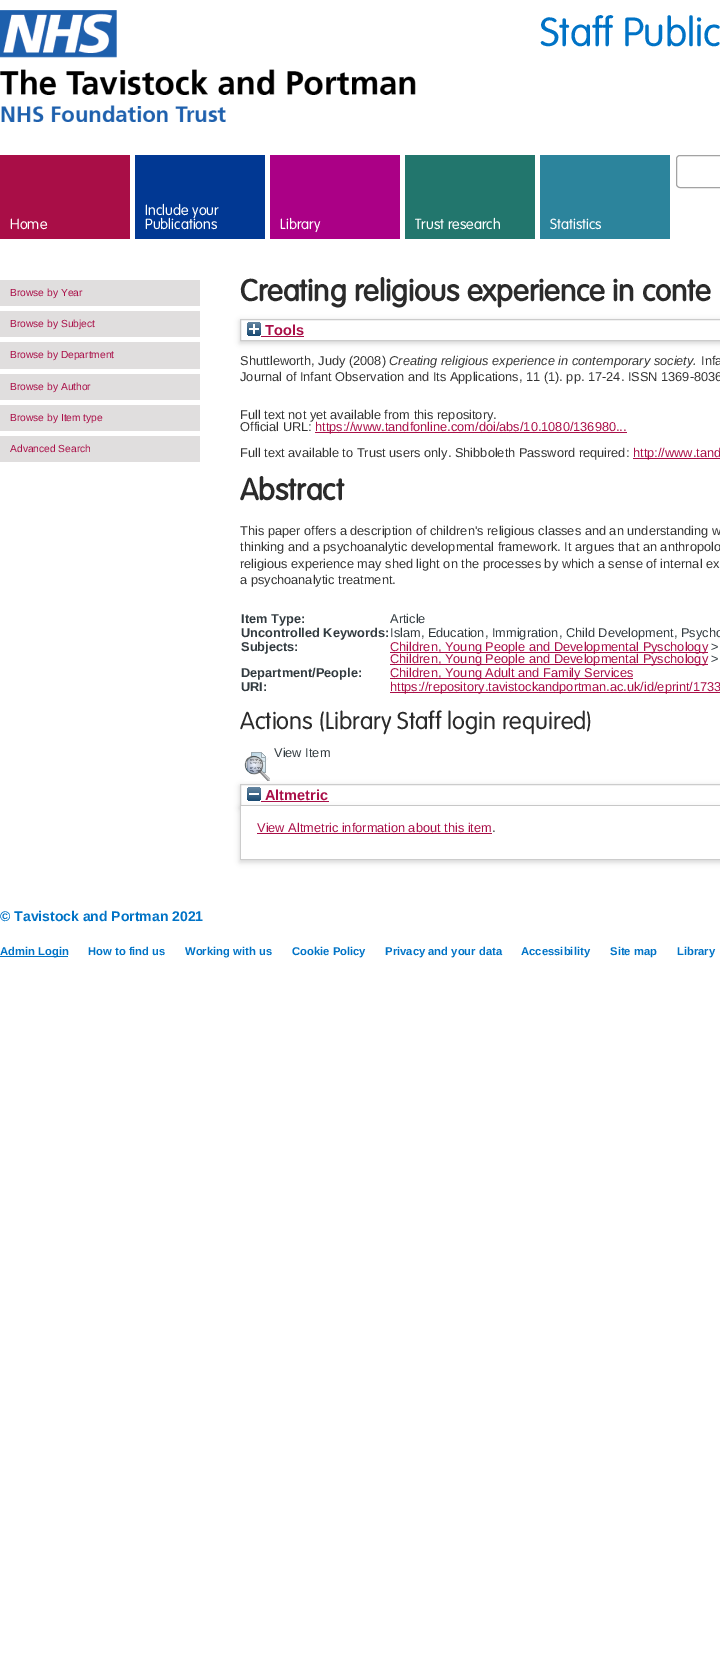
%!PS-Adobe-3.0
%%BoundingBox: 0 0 720 1667
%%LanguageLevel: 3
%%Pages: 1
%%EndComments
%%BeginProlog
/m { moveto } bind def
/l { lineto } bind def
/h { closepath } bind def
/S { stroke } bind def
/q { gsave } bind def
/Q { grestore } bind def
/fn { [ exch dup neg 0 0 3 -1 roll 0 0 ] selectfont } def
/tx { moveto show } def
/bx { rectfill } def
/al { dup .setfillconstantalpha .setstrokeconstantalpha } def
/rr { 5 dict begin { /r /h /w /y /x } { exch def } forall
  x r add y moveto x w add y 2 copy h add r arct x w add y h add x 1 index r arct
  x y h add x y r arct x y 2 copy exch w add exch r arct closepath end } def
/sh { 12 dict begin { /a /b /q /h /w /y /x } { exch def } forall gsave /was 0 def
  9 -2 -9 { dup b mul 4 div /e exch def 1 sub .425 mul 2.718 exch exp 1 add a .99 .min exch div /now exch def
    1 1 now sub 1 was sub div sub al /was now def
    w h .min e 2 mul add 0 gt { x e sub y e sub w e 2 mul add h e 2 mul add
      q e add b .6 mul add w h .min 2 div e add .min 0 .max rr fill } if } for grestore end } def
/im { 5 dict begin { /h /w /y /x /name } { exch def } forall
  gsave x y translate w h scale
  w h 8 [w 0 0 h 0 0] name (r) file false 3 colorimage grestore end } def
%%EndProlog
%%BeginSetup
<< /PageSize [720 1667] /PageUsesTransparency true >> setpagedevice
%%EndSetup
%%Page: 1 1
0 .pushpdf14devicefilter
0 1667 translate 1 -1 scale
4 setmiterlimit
1 setgray
0 0 720 1667 bx
(image0.raw) 0 10 416 112 im
/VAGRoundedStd-Light 40 fn
0 0.451 0.776 setrgbcolor
(Staff Public) 540 46 tx
0.639 setgray
676.5 155.5 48 32 3.5 rr S
0.663 0.055 0.278 setrgbcolor
0 155 130 84 bx
/VAGRoundedStd-Light 14.5 fn
1 setgray
(Home) 10 229 tx
0.004 0.22 0.576 setrgbcolor
135 155 130 84 bx
1 setgray
(Include your) 145 215 tx
(Publications) 145 229 tx
0.671 0 0.525 setrgbcolor
270 155 130 84 bx
1 setgray
(Library) 280 229 tx
0.133 0.463 0.427 setrgbcolor
405 155 130 84 bx
1 setgray
(Trust research) 415 229 tx
0.173 0.518 0.612 setrgbcolor
540 155 130 84 bx
1 setgray
(Statistics) 550 229 tx
0.878 0.871 0.871 setrgbcolor
0 280 200 26 bx
/LiberationSans-Regular 10.25 fn
0.663 0.055 0.278 setrgbcolor
(Browse by Year) 10 296 tx
0.878 0.871 0.871 setrgbcolor
0 311 200 26 bx
0.663 0.055 0.278 setrgbcolor
(Browse by Subject) 10 327 tx
0.878 0.871 0.871 setrgbcolor
0 342 200 27 bx
0.663 0.055 0.278 setrgbcolor
(Browse by Department) 10 358 tx
0.878 0.871 0.871 setrgbcolor
0 374 200 26 bx
0.663 0.055 0.278 setrgbcolor
(Browse by Author) 10 390 tx
0.878 0.871 0.871 setrgbcolor
0 405 200 26 bx
0.663 0.055 0.278 setrgbcolor
(Browse by Item type) 10 421 tx
0.878 0.871 0.871 setrgbcolor
0 436 200 26 bx
0.663 0.055 0.278 setrgbcolor
(Advanced Search) 10 452 tx
/VAGRoundedStd-Bold 30 fn
0.169 setgray
(Creating religious experience in conte) 240 301 tx
q
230 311 m 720 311 l 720 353 l 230 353 l h 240 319 m 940 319 l 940 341 l 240 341 l h eoclip newpath
0.392 setgray
240 321 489 22 0 3 0.3 sh
Q
0.8 setgray
240.5 319.5 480 21 rectstroke
(image1.raw) 247 322 14 14 im
/LiberationSans-Bold 14.5 fn
0.663 0.055 0.278 setrgbcolor
(Tools) 265 335 tx
261 336 43 1 bx
/LiberationSans-Regular 12.8 fn
0.2 setgray
(Shuttleworth, Judy \(2008\)) 240 365 tx
/LiberationSans-Italic 12.8 fn
(Creating religious experience in contemporary society.) 389 365 tx
/LiberationSans-Regular 12.8 fn
(Infa) 701 365 tx
(Journal of Infant Observation and Its Applications, 11 \(1\). pp. 17-24. ISSN 1369-8036) 240 381 tx
(Full text not yet available from this repository.) 240 419 tx
(Official URL:) 240 431 tx
0.663 0.055 0.278 setrgbcolor
315 432 312 1 bx
(https://www.tandfonline.com/doi/abs/10.1080/136980...) 315 431 tx
0.2 setgray
(Full text available to Trust users only. Shibboleth Password required:) 240 457 tx
0.663 0.055 0.278 setrgbcolor
633 458 87 1 bx
(http://www.tand) 633 457 tx
/VAGRoundedStd-Bold 30 fn
0.169 setgray
(Abstract) 240 500 tx
/LiberationSans-Regular 12.8 fn
0.2 setgray
(This paper offers a description of children's religious classes and an understanding w) 240 535 tx
(thinking and a psychoanalytic developmental framework. It argues that an anthropolo) 240 551 tx
(religious experience may shed light on the processes by which a sense of internal ex) 240 568 tx
(a psychoanalytic treatment.) 240 584 tx
/LiberationSans-Bold 12.8 fn
0.192 0.227 0.247 setrgbcolor
(Item Type:) 241 623 tx
/LiberationSans-Regular 12.8 fn
(Article) 390 623 tx
/LiberationSans-Bold 12.8 fn
(Uncontrolled Keywords:) 241 637 tx
/LiberationSans-Regular 12.8 fn
(Islam, Education, Immigration, Child Development, Psycho) 390 637 tx
/LiberationSans-Bold 12.8 fn
(Subjects:) 241 651 tx
0.663 0.055 0.278 setrgbcolor
390 652 318 1 bx
/LiberationSans-Regular 12.8 fn
(Children, Young People and Developmental Pyschology) 390 651 tx
0.192 0.227 0.247 setrgbcolor
(>) 711 651 tx
0.663 0.055 0.278 setrgbcolor
390 664 318 1 bx
(Children, Young People and Developmental Pyschology) 390 663 tx
0.192 0.227 0.247 setrgbcolor
(>) 711 663 tx
/LiberationSans-Bold 12.8 fn
(Department/People:) 241 677 tx
0.663 0.055 0.278 setrgbcolor
390 678 243 1 bx
/LiberationSans-Regular 12.8 fn
(Children, Young Adult and Family Services) 390 677 tx
/LiberationSans-Bold 12.8 fn
0.192 0.227 0.247 setrgbcolor
(URI:) 241 691 tx
0.663 0.055 0.278 setrgbcolor
390 692 330 1 bx
/LiberationSans-Regular 12.8 fn
(https://repository.tavistockandportman.ac.uk/id/eprint/1733) 390 691 tx
/VAGRoundedStd-Light 24 fn
0.169 setgray
(Actions \(Library Staff login required\)) 240 729 tx
q
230 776 m 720 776 l 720 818 l 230 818 l h 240 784 m 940 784 l 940 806 l 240 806 l h eoclip newpath
0.392 setgray
240 786 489 22 0 3 0.3 sh
Q
(image2.raw) 244 752 26 29 im
/LiberationSans-Regular 12.8 fn
0.192 0.227 0.247 setrgbcolor
(View Item) 274 757 tx
0.8 setgray
240.5 784.5 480 21 rectstroke
0.392 setgray
240 808 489 54 0 3 0.3 sh
(image3.raw) 247 787 14 14 im
/LiberationSans-Bold 14.5 fn
0.663 0.055 0.278 setrgbcolor
(Altmetric) 265 800 tx
261 801 68 1 bx
1 setgray
241 806 479 53 bx
0.8 setgray
240 859 480 1 bx
240 806 1 54 bx
/LiberationSans-Regular 12.8 fn
0.663 0.055 0.278 setrgbcolor
(View Altmetric information about this item) 257 832 tx
257 833 235 1 bx
0.2 setgray
(.) 492 832 tx
/LiberationSans-Bold 14 fn
0 0.451 0.776 setrgbcolor
(© Tavistock and Portman 2021) 0 921 tx
0 956 68 1 bx
/LiberationSans-Bold 11.25 fn
(Admin Login) 0 955 tx
(How to find us) 88 955 tx
(Working with us) 185 955 tx
(Cookie Policy) 292 955 tx
(Privacy and your data) 385 955 tx
(Accessibility) 521 955 tx
(Site map) 610 955 tx
(Library) 677 955 tx
.poppdf14devicefilter showpage
%%EOF
